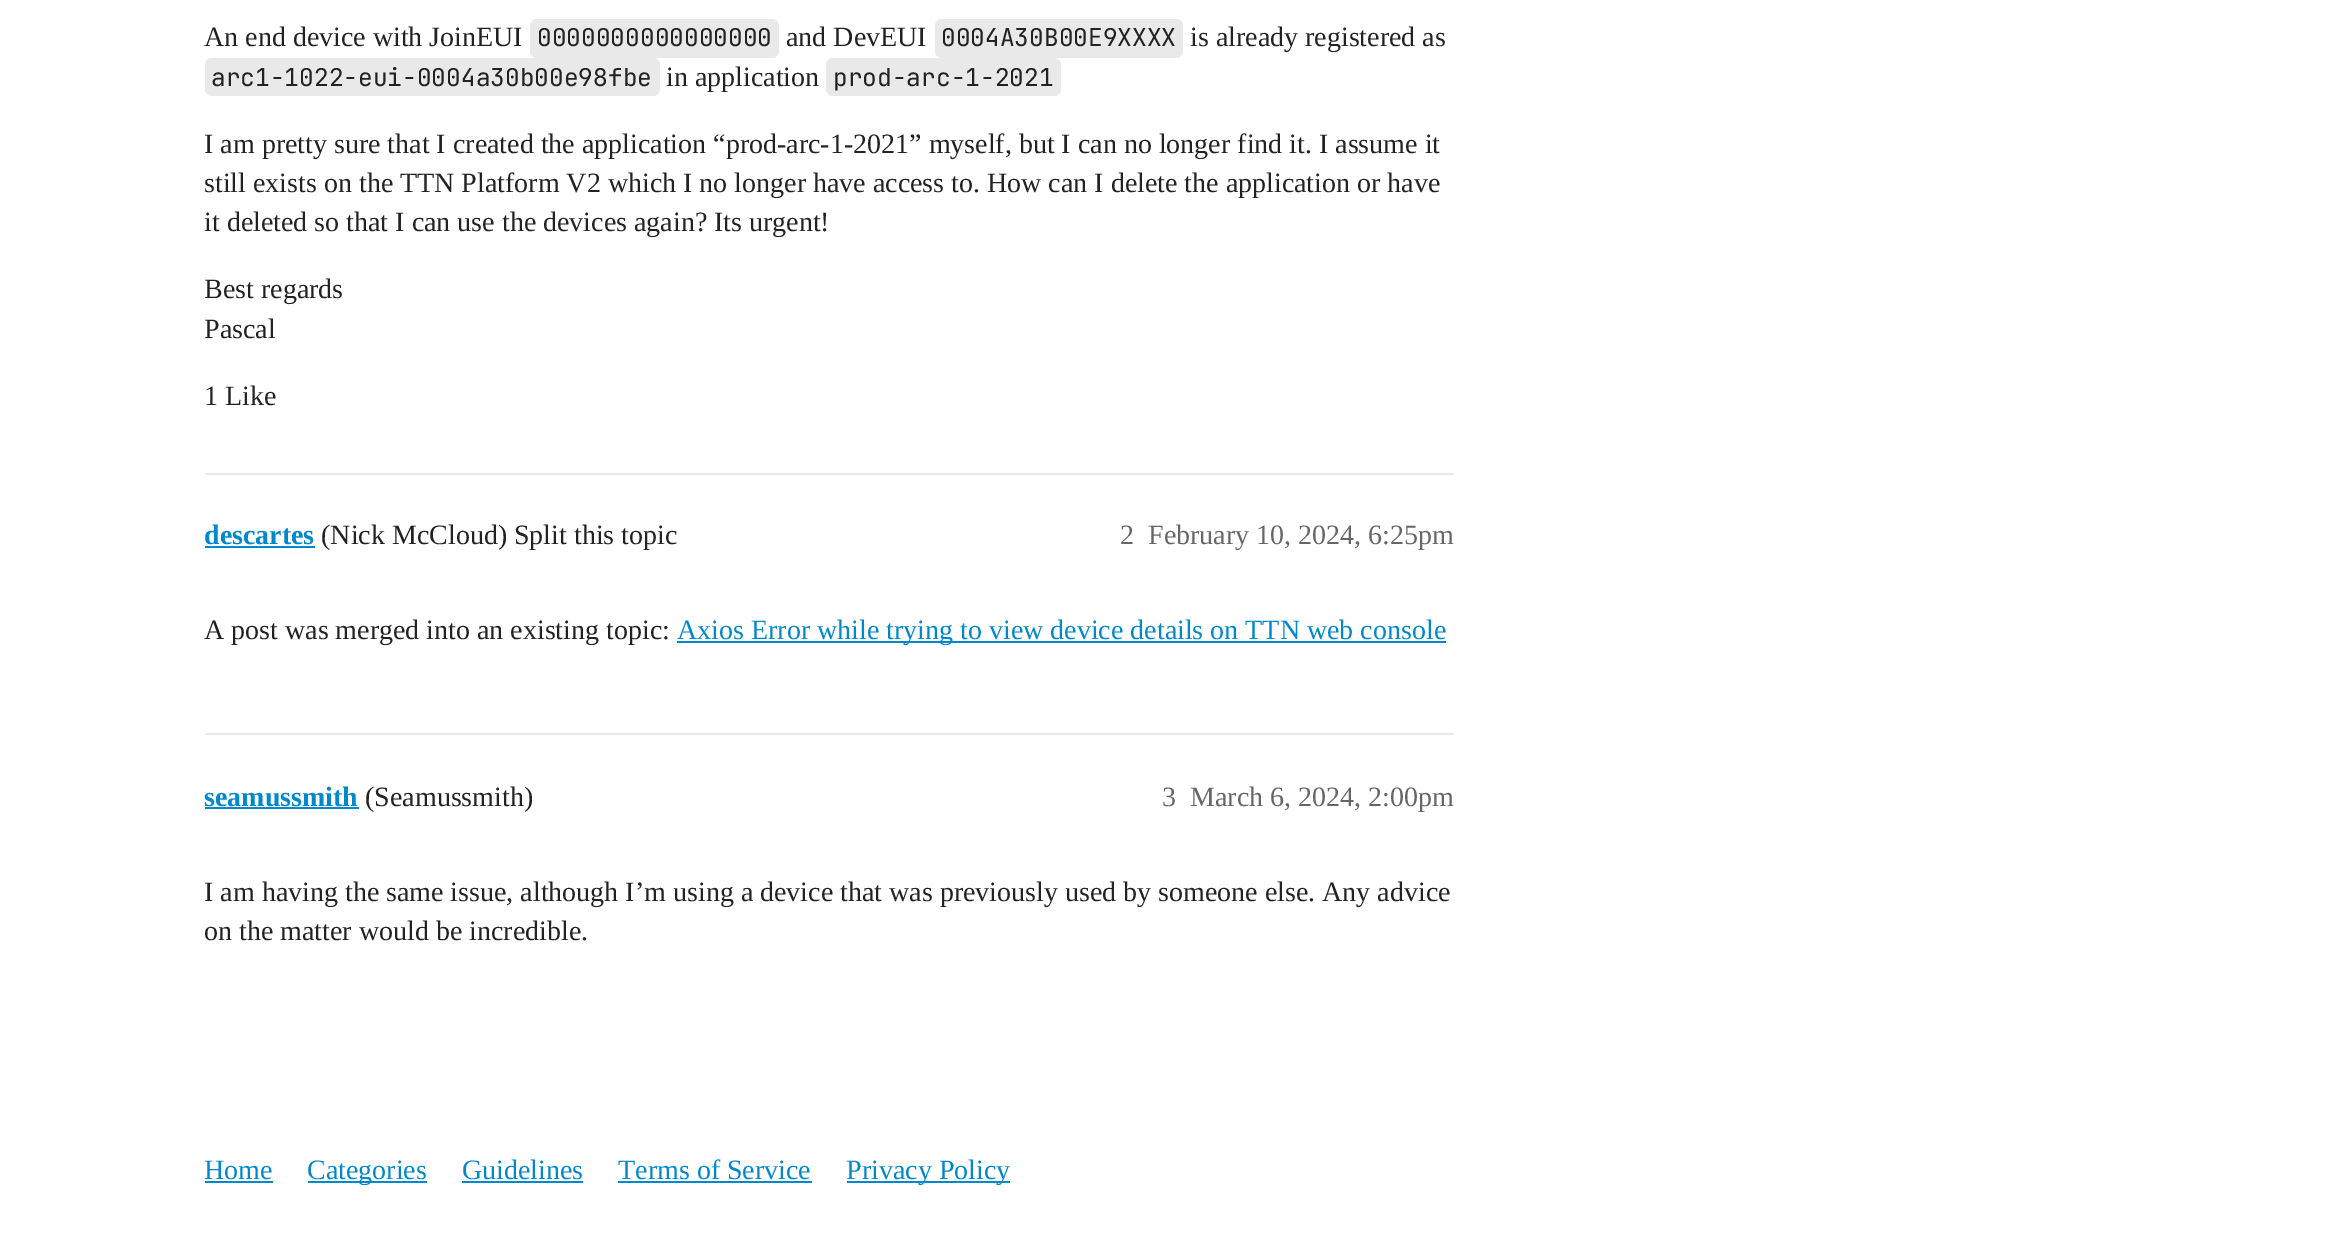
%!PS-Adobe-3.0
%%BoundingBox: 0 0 2349 1240
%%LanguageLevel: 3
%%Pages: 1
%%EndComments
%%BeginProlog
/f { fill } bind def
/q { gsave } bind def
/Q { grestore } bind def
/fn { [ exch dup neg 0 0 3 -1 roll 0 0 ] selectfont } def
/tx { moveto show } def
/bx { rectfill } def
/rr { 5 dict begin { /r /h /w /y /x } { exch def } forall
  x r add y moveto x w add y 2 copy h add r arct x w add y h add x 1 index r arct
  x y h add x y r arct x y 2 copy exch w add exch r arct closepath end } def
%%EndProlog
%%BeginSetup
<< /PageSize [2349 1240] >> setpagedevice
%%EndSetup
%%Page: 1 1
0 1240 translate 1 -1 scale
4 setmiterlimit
1 setgray
0 0 2349 1240 bx
/LiberationSerif-Regular 28 fn
0.133 setgray
(An end device with JoinEUI) 204 46 tx
0.914 setgray
530 19 249 39 7 rr f
/JetBrainsMono-Regular 24.5 fn
0.133 setgray
(0000000000000000) 537 46 tx
/LiberationSerif-Regular 28 fn
(and DevEUI) 786 46 tx
0.914 setgray
935 19 248 39 7 rr f
/JetBrainsMono-Regular 24.5 fn
0.133 setgray
(0004A30B00E9XXXX) 941 46 tx
/LiberationSerif-Regular 28 fn
(is already registered as) 1190 46 tx
0.914 setgray
205 58 455 38 7 rr f
/JetBrainsMono-Regular 24.5 fn
0.133 setgray
(arc1-1022-eui-0004a30b00e98fbe) 211 86 tx
/LiberationSerif-Regular 28 fn
(in application) 666 86 tx
0.914 setgray
826 58 235 38 7 rr f
/JetBrainsMono-Regular 24.5 fn
0.133 setgray
(prod-arc-1-2021) 833 86 tx
/LiberationSerif-Regular 28 fn
(I am pretty sure that I created the application “prod-arc-1-2021” myself, but I can no longer find it. I assume it) 204 153 tx
(still exists on the TTN Platform V2 which I no longer have access to. How can I delete the application or have) 204 192 tx
(it deleted so that I can use the devices again? Its urgent!) 204 231 tx
q
205 0 1249 376 rectclip
(Best regards) 204 298 tx
(Pascal) 204 338 tx
Q
(1 Like) 204 405 tx
0.914 setgray
205 473 1249 2 bx
/LiberationSerif-Bold 28 fn
0 0.533 0.8 setrgbcolor
(descartes) 204 544 tx
205 546 110 2 bx
/LiberationSerif-Regular 28 fn
0.133 setgray
(\(Nick McCloud\) Split this topic) 321 544 tx
0.4 setgray
(2) 1120 544 tx
(February 10, 2024, 6:25pm) 1148 544 tx
0.133 setgray
(A post was merged into an existing topic:) 204 639 tx
0 0.533 0.8 setrgbcolor
677 641 769 2 bx
(Axios Error while trying to view device details on TTN web console) 677 639 tx
0.914 setgray
205 733 1249 2 bx
/LiberationSerif-Bold 28 fn
0 0.533 0.8 setrgbcolor
(seamussmith) 204 806 tx
205 807 154 2 bx
/LiberationSerif-Regular 28 fn
0.133 setgray
(\(Seamussmith\)) 365 806 tx
0.4 setgray
(3) 1162 806 tx
(March 6, 2024, 2:00pm) 1190 806 tx
0.133 setgray
(I am having the same issue, although I’m using a device that was previously used by someone else. Any advice) 204 901 tx
(on the matter would be incredible.) 204 940 tx
0 0.533 0.8 setrgbcolor
(Home) 204 1179 tx
205 1181 68 2 bx
308 1181 119 2 bx
(Categories) 307 1179 tx
(Guidelines) 462 1179 tx
462 1181 121 2 bx
(Terms of Service) 618 1179 tx
618 1181 194 2 bx
847 1181 163 2 bx
(Privacy Policy) 846 1179 tx
showpage
%%EOF
